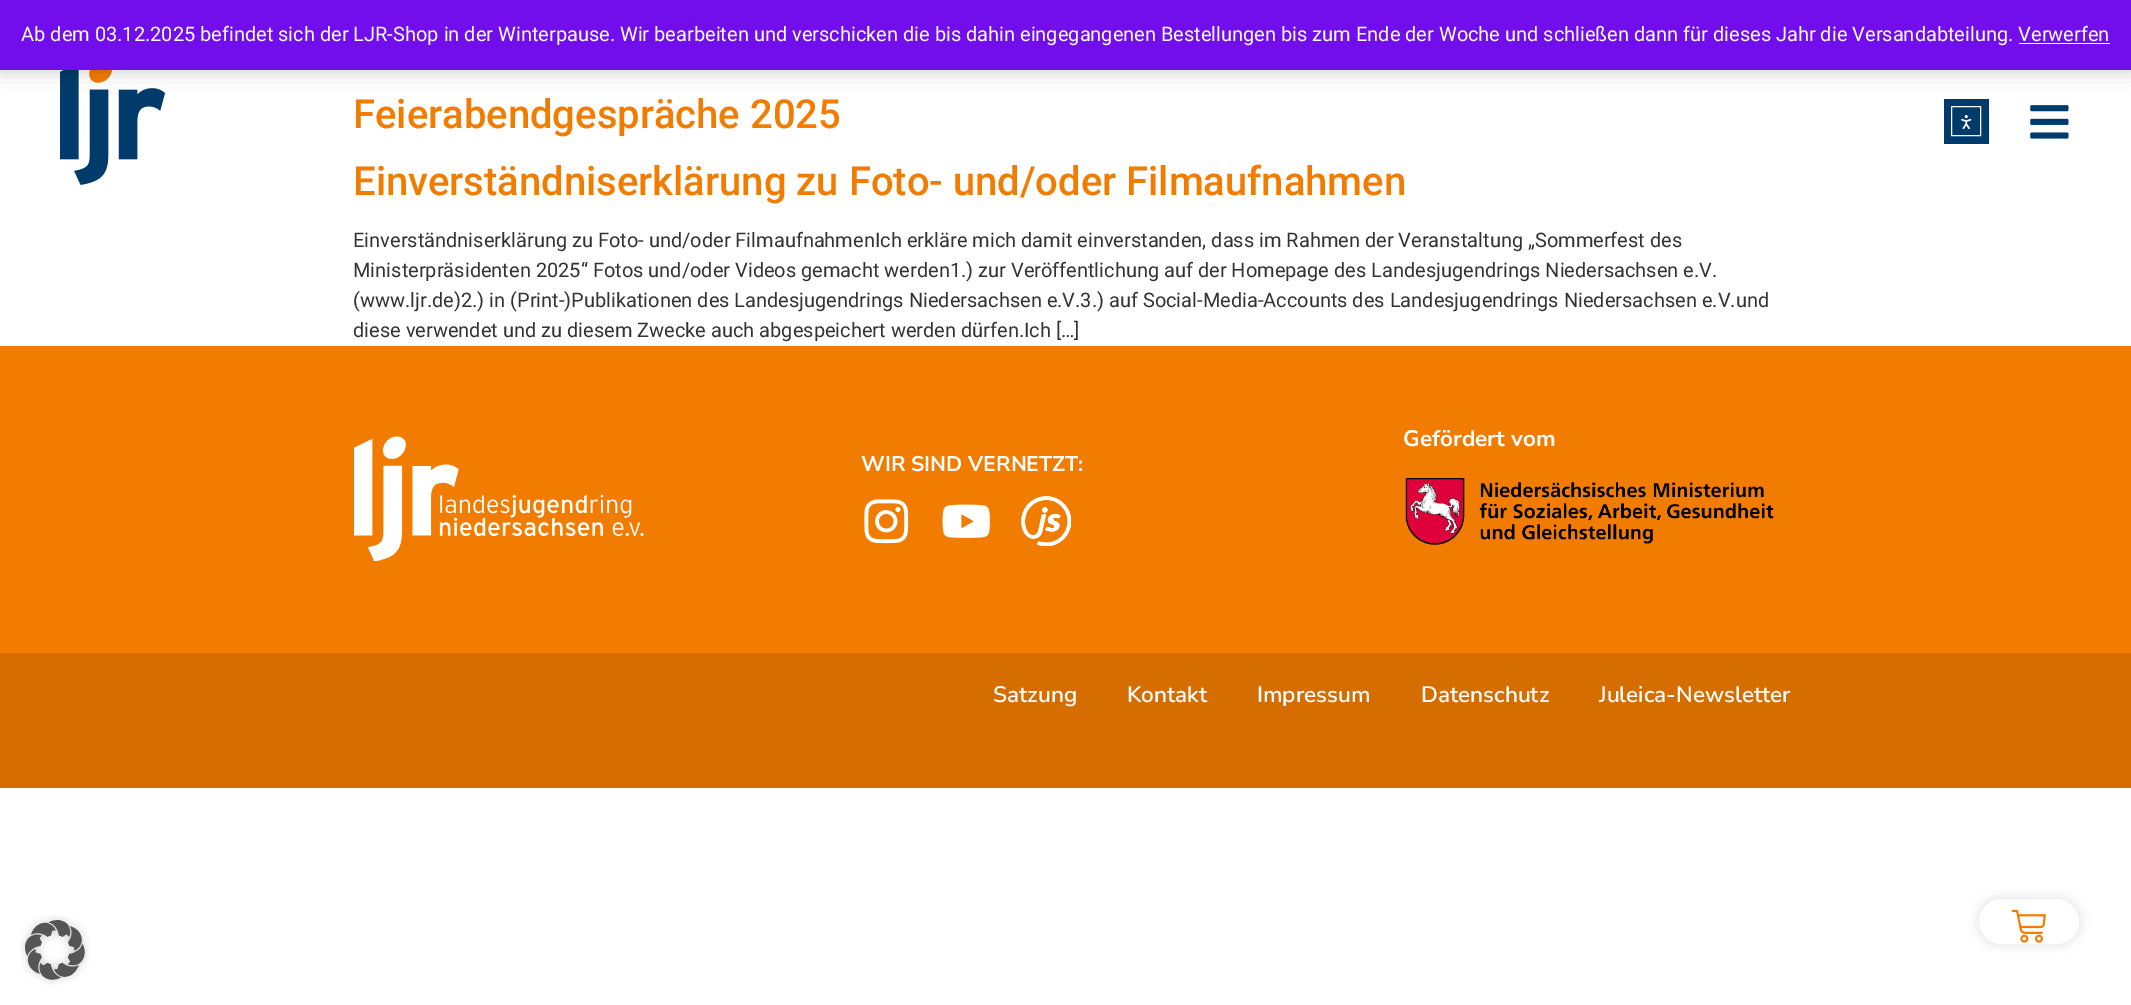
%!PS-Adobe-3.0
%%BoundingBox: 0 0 2131 1005
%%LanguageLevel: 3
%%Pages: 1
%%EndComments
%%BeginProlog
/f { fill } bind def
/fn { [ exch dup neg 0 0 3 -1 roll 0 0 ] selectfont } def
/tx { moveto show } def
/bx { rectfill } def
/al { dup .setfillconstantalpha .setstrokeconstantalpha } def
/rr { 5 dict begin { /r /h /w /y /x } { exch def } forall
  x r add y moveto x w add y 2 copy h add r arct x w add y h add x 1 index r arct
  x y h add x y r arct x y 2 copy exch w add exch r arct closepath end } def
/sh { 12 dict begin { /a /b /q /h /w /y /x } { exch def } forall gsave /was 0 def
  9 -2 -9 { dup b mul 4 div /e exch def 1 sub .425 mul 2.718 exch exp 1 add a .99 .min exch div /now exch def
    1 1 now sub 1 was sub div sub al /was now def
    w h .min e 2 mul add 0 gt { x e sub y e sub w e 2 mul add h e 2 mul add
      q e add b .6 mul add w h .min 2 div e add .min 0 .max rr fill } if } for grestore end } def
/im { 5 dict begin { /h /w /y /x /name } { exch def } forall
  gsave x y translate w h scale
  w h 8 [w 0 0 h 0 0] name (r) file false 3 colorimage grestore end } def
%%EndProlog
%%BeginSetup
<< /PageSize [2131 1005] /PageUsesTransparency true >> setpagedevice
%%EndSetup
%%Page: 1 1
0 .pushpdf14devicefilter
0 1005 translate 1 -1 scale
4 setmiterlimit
1 setgray
0 0 2131 1005 bx
(image0.raw) 60 70 105 115 im
0 setgray
0 1 2131 70 0 10 0.2 sh
0.447 0.055 0.925 setrgbcolor
0 0 2131 70 bx
/Roboto-Regular 20 fn
1 setgray
(Ab dem 03.12.2025 befindet sich der LJR-Shop in der Winterpause. Wir bearbeiten und verschicken die bis dahin eingegangenen Bestellungen bis zum Ende der Woche und schließen dann für dieses Jahr die Versandabteilung. Verwerfen) 21 41 tx
0.988 0.984 0.996 setrgbcolor
2019 43 91 1 bx
(image1.raw) 2030 105 39 34 im
0 setgray
1979 899 100 45 22.5 6 0.12 sh
1 setgray
1979 899 100 45 22.5 rr f
(image2.raw) 2011 909 35 34 im
/Roboto-Medium 40 fn
0.949 0.486 0 setrgbcolor
(Feierabendgespräche 2025) 353 128 tx
(Einverständniserklärung zu Foto- und/oder Filmaufnahmen) 353 195 tx
/Roboto-Regular 20 fn
0.2 setgray
(Einverständniserklärung zu Foto- und/oder FilmaufnahmenIch erkläre mich damit einverstanden, dass im Rahmen der Veranstaltung „Sommerfest des) 353 247 tx
(Ministerpräsidenten 2025“ Fotos und/oder Videos gemacht werden1.\) zur Veröffentlichung auf der Homepage des Landesjugendrings Niedersachsen e.V.) 353 277 tx
(\(www.ljr.de\)2.\) in \(Print-\)Publikationen des Landesjugendrings Niedersachsen e.V.3.\) auf Social-Media-Accounts des Landesjugendrings Niedersachsen e.V.und) 353 307 tx
(diese verwendet und zu diesem Zwecke auch abgespeichert werden dürfen.Ich […]) 353 337 tx
0 0.231 0.42 setrgbcolor
1944 99 45 45 bx
1 setgray
1951.5 106.5 29 29 rectstroke
(image3.raw) 1961 115 11 15 im
0.949 0.486 0 setrgbcolor
0 346 2131 307 bx
(image4.raw) 354 436 290 125 im
/NunitoSans-Bold 21.25 fn
1 setgray
(WIR SIND VERNETZT:) 861 471 tx
(image5.raw) 864 499 45 45 im
(image6.raw) 942 504 48 34 im
(image7.raw) 1021 496 50 50 im
/NunitoSans-Bold 22.5 fn
(Gefördert vom) 1403 446 tx
(image8.raw) 1405 478 369 67 im
0.835 0.427 0 setrgbcolor
0 653 2131 135 bx
/NunitoSans-SemiBold 22.5 fn
1 setgray
(Satzung) 993 702 tx
(Kontakt) 1127 702 tx
(Impressum) 1257 702 tx
(Datenschutz) 1421 702 tx
(Juleica-Newsletter) 1599 702 tx
(image9.raw) 20 915 70 70 im
.poppdf14devicefilter showpage
%%EOF
